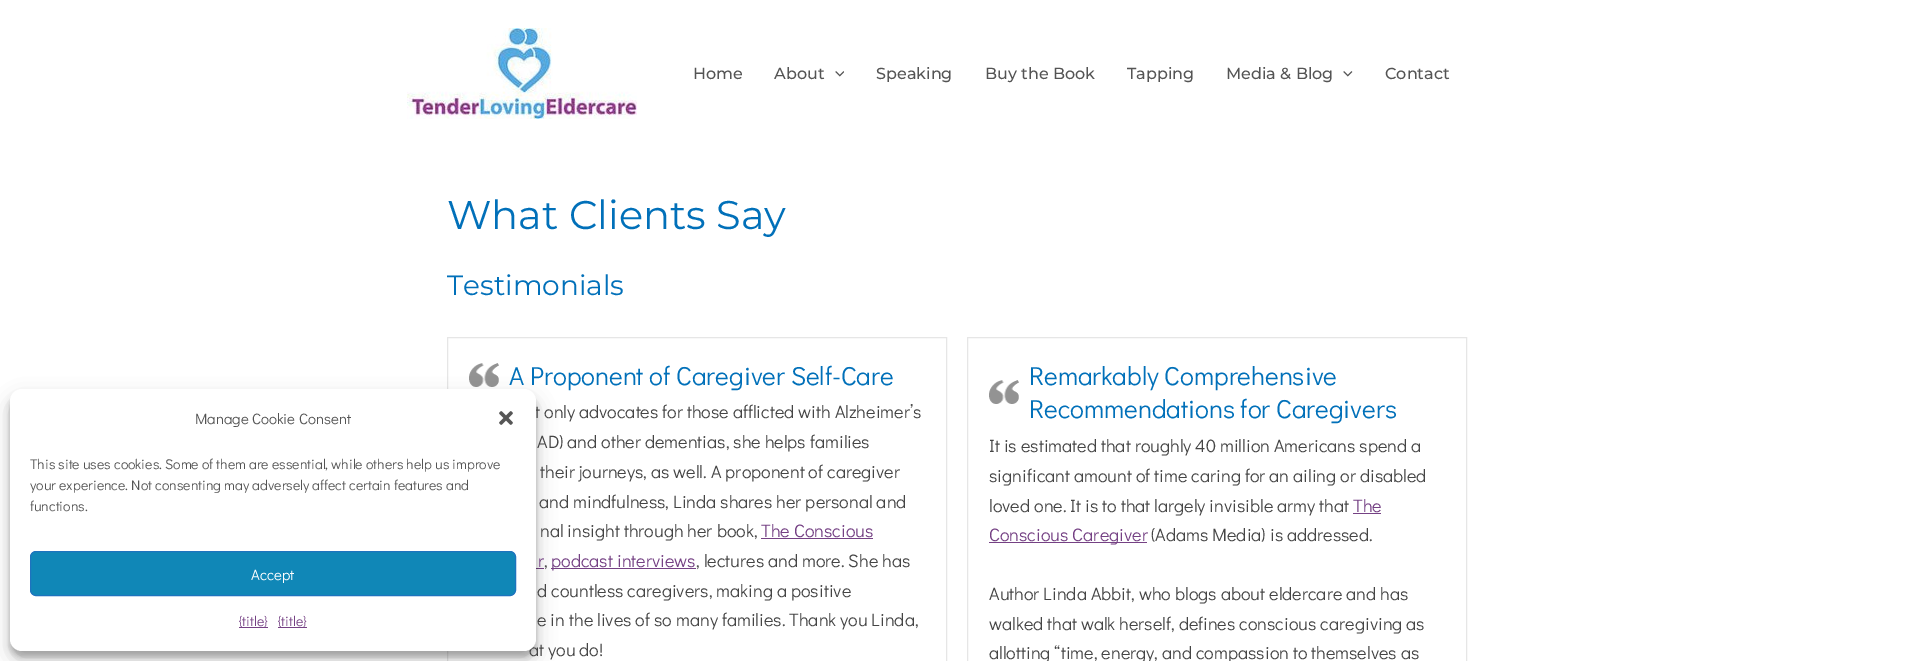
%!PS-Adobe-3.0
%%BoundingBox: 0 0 1913 661
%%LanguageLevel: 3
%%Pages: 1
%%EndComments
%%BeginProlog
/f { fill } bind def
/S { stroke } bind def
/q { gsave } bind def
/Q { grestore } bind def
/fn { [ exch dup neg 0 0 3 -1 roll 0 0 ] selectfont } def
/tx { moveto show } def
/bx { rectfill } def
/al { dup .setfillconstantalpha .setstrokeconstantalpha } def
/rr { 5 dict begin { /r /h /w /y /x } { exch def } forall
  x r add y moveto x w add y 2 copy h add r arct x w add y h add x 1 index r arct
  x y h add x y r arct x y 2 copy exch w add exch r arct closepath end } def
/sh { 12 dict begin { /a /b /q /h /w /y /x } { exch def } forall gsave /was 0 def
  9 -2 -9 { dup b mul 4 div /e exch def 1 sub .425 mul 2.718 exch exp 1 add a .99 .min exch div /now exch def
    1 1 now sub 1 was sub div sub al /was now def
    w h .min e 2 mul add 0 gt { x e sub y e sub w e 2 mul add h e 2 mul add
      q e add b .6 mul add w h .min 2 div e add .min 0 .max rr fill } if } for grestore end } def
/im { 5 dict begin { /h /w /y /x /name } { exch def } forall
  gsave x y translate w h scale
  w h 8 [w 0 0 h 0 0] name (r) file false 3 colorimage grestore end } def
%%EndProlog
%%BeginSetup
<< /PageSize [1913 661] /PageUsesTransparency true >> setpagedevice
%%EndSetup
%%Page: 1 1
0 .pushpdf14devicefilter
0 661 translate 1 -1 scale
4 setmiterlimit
1 setgray
0 0 1913 661 bx
0.902 setgray
447.5 337.5 499 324 rectstroke
(image4.raw) 469 363 30 24 im
0.459 0.255 0.518 setrgbcolor
536 568 8 1 bx
0 setgray
10 395 526 262 12 3 0.23 sh
0.459 0.255 0.518 setrgbcolor
551 568 145 1 bx
0 setgray
10 399 526 262 12 10 0.19 sh
/DidactGothic-Regular 26 fn
0.004 0.439 0.725 setrgbcolor
(A Proponent of Caregiver Self-Care) 509 385 tx
/DidactGothic-Regular 18 fn
0.271 setgray
(t only advocates for those afflicted with Alzheimer’s) 535 418 tx
(at you do!) 529 656 tx
1 setgray
10 389 526 262 12 rr f
/DidactGothic-Regular 15 fn
0.329 setgray
(Manage Cookie Consent) 195 424 tx
(image0.raw) 499 411 14 14 im
/DidactGothic-Regular 14 fn
(This site uses cookies. Some of them are essential, while others help us improve) 30 469 tx
(your experience. Not consenting may adversely affect certain features and) 30 490 tx
(functions.) 30 511 tx
0.063 0.529 0.718 setrgbcolor
30.5 551.5 485 44 5.5 rr q f Q
0.118 0.451 0.745 setrgbcolor
S
/DidactGothic-Regular 15 fn
1 setgray
(Accept) 251 580 tx
/DidactGothic-Regular 14 fn
0.459 0.255 0.518 setrgbcolor
({title}) 239 626 tx
239 627 29 1 bx
({title}) 278 626 tx
278 627 29 1 bx
(image1.raw) 407 28 230 91 im
/Montserrat-Medium 16 fn
0.329 setgray
(Home) 693 79 tx
(About) 774 79 tx
(image2.raw) 835 71 9 6 im
(Speaking) 876 79 tx
(Buy the Book) 985 79 tx
(Tapping) 1127 79 tx
(Media & Blog) 1226 79 tx
(image3.raw) 1343 71 10 6 im
(Contact) 1385 79 tx
/Montserrat-Regular 40 fn
0.004 0.439 0.725 setrgbcolor
(What Clients Say) 447 229 tx
/Montserrat-Regular 28 fn
(Testimonials) 447 295 tx
/DidactGothic-Regular 18 fn
0.271 setgray
(AD\) and other dementias, she helps families) 537 448 tx
(their journeys, as well. A proponent of caregiver) 540 478 tx
(and mindfulness, Linda shares her personal and) 539 508 tx
(nal insight through her book,) 540 537 tx
0.459 0.255 0.518 setrgbcolor
(The Conscious) 761 537 tx
761 538 112 1 bx
(r) 538 567 tx
(podcast interviews) 551 567 tx
0.271 setgray
(, lectures and more. She has) 696 567 tx
(,) 544 567 tx
(d countless caregivers, making a positive) 537 597 tx
(e in the lives of so many families. Thank you Linda,) 537 626 tx
0.902 setgray
967.5 337.5 499 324 rectstroke
(image4.raw) 989 380 30 24 im
/DidactGothic-Regular 26 fn
0.004 0.439 0.725 setrgbcolor
(Remarkably Comprehensive) 1029 385 tx
(Recommendations for Caregivers) 1029 418 tx
/DidactGothic-Regular 18 fn
0.271 setgray
(It is estimated that roughly 40 million Americans spend a) 989 452 tx
(significant amount of time caring for an ailing or disabled) 989 482 tx
(loved one. It is to that largely invisible army that) 989 512 tx
0.459 0.255 0.518 setrgbcolor
(The) 1353 512 tx
1353 513 28 1 bx
989 542 158 1 bx
(Conscious Caregiver) 989 541 tx
0.271 setgray
(\(Adams Media\) is addressed.) 1151 541 tx
(Author Linda Abbit, who blogs about eldercare and has) 989 600 tx
(walked that walk herself, defines conscious caregiving as) 989 630 tx
(allotting “time, energy, and compassion to themselves as) 989 659 tx
.poppdf14devicefilter showpage
%%EOF
